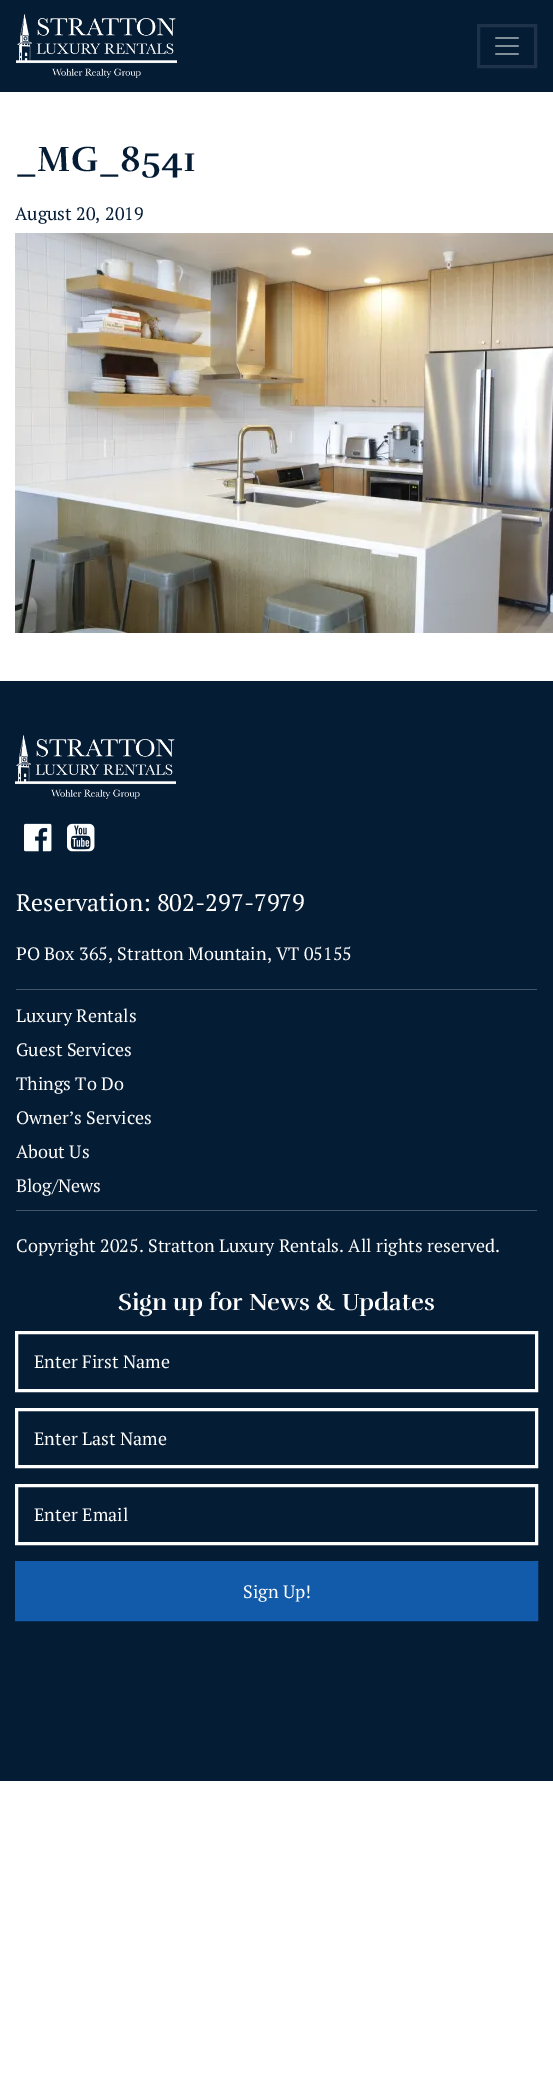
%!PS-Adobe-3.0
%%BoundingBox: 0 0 553 2087
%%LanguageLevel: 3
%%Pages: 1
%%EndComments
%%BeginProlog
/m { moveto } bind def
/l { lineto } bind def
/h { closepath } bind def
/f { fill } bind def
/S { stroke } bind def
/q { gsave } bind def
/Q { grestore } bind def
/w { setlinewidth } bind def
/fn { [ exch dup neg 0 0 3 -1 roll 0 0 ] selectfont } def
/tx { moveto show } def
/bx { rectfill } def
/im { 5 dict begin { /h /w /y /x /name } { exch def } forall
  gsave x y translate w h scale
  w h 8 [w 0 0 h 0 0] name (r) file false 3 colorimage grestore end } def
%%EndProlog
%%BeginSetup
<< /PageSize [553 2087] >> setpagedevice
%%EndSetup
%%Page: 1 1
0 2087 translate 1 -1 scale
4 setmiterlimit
1 setgray
0 0 553 2087 bx
0.02 0.11 0.208 setrgbcolor
0 0 553 92 bx
(image0.raw) 16 14 161 64 im
0.118 0.2 0.286 setrgbcolor
3 w
478.5 25.5 57 41 rectstroke
(image1.raw) 495 37 24 18 im
/Rufina-Bold 36 fn
0.02 0.11 0.208 setrgbcolor
(_MG_8541) 15 171 tx
/PTSerif-Regular 18 fn
(August 20, 2019) 15 220 tx
(image2.raw) 15 233 538 400 im
0 681 553 1100 bx
(image0.raw) 15 735 161 64 im
(image3.raw) 24 823 28 29 im
(image4.raw) 67 823 28 29 im
/PTSerif-Regular 24 fn
1 setgray
(Reservation: 802-297-7979) 16 911 tx
/PTSerif-Regular 18 fn
(PO Box 365, Stratton Mountain, VT 05155) 16 960 tx
0.267 0.333 0.408 setrgbcolor
16 989 521 1 bx
16 1210 521 1 bx
1 setgray
(Luxury Rentals) 16 1022 tx
(Guest Services) 16 1056 tx
(Things To Do) 16 1090 tx
(Owner’s Services) 16 1124 tx
(About Us) 16 1158 tx
(Blog/News) 16 1192 tx
(Copyright 2025. Stratton Luxury Rentals. All rights reserved.) 16 1252 tx
/Rufina-Bold 24 fn
(Sign up for News & Updates) 118 1310 tx
16.5 1332.5 520 58 rectstroke
/PTSerif-Regular 18 fn
(Enter First Name) 34 1368 tx
16.5 1409.5 520 57 rectstroke
(Enter Last Name) 34 1445 tx
16.5 1485.5 520 58 rectstroke
(Enter Email) 34 1521 tx
0.071 0.357 0.667 setrgbcolor
16.5 1562.5 m 536.5 1562.5 l 536.5 1619.5 l 16.5 1619.5 l h q f Q
S
1 setgray
(Sign Up!) 243 1598 tx
showpage
%%EOF
